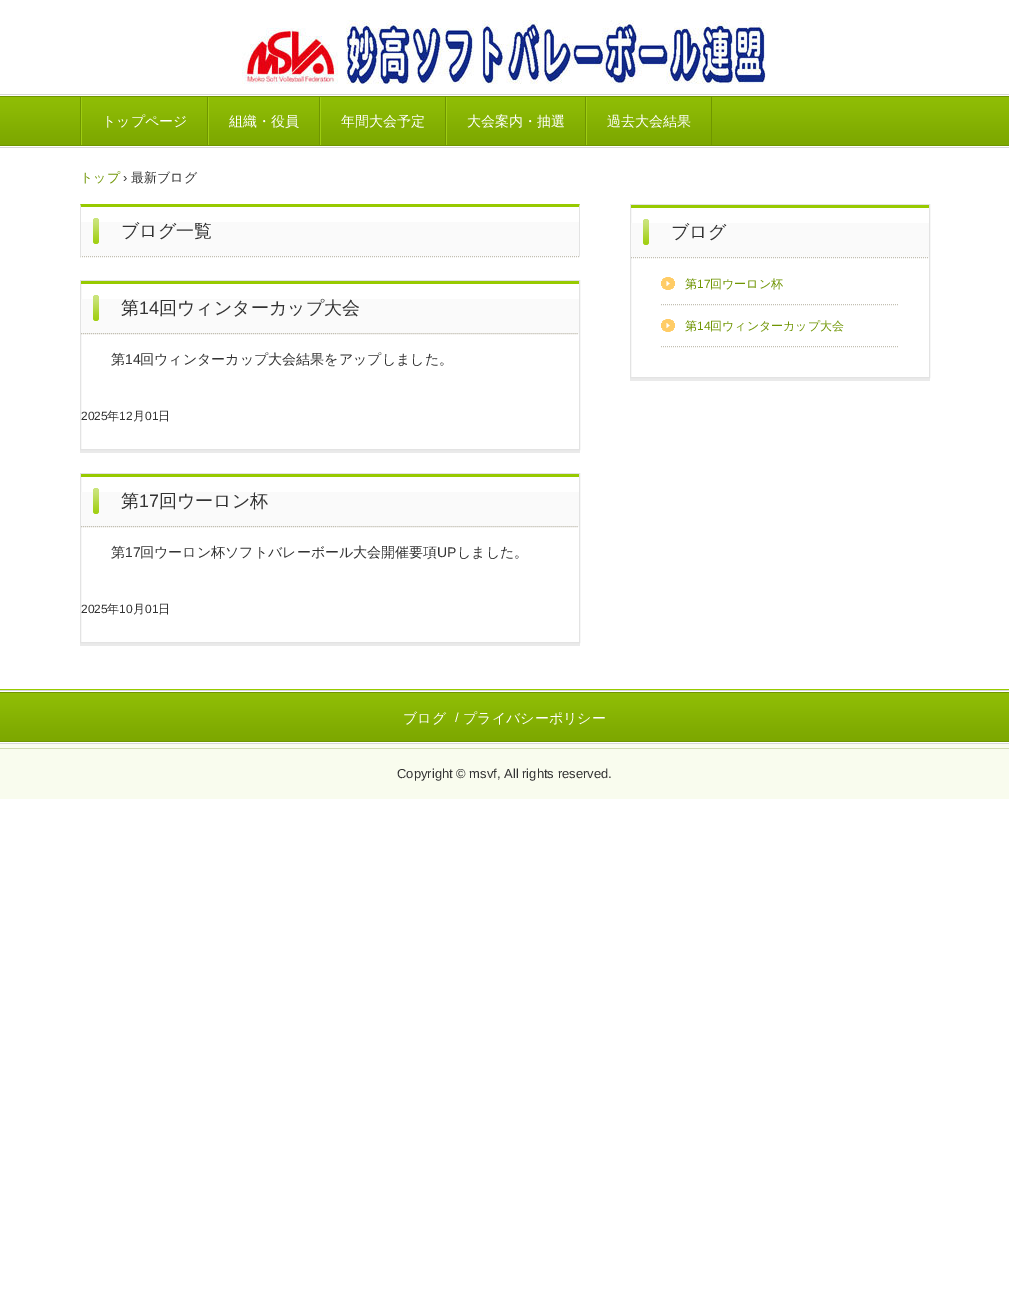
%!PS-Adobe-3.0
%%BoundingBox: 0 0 1009 1292
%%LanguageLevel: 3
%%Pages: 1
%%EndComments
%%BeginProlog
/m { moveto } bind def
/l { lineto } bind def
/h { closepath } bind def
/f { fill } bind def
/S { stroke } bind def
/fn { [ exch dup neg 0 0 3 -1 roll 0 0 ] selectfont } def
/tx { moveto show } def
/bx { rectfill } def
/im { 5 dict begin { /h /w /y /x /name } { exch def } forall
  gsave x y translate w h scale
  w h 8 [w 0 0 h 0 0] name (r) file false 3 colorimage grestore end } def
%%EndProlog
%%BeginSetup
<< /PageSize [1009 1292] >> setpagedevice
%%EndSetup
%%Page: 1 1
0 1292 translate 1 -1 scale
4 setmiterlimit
1 setgray
0 0 1009 1292 bx
(image0.raw) 242 20 524 64 im
(image1.raw) 0 97 1009 48 im
0.843 setgray
0 94 1009 1 bx
0 147 1009 1 bx
0.435 0.584 0.004 setrgbcolor
0 96 1009 1 bx
80 97 1 48 bx
207 97 1 48 bx
0.62 0.804 0.071 setrgbcolor
81 97 1 48 bx
/WenQuanYiZenHei-Medium 14 fn
1 setgray
(トップページ) 102 126 tx
0.435 0.584 0.004 setrgbcolor
319 97 1 48 bx
0.62 0.804 0.071 setrgbcolor
208 97 1 48 bx
1 setgray
(組織・役員) 229 126 tx
0.435 0.584 0.004 setrgbcolor
445 97 1 48 bx
0.62 0.804 0.071 setrgbcolor
320 97 1 48 bx
1 setgray
(年間大会予定) 341 126 tx
0.435 0.584 0.004 setrgbcolor
585 97 1 48 bx
0.62 0.804 0.071 setrgbcolor
446 97 1 48 bx
1 setgray
(大会案内・抽選) 467 126 tx
0.435 0.584 0.004 setrgbcolor
711 97 1 48 bx
0.62 0.804 0.071 setrgbcolor
586 97 1 48 bx
1 setgray
(過去大会結果) 607 126 tx
0.435 0.584 0.004 setrgbcolor
0 145 1009 1 bx
/WenQuanYiZenHei-Medium 13 fn
0.435 0.584 0.008 setrgbcolor
(トップ) 80 182 tx
/LiberationSans-Regular 13 fn
0.2 setgray
(›) 123 182 tx
/WenQuanYiZenHei-Medium 13 fn
(最新ブログ) 131 182 tx
0.98 setgray
81 222 499 35 bx
0.592 0.792 0 setrgbcolor
80 204 m 580 204 l 579 207 l 81 207 l h f
0.89 setgray
580 204 m 580 257 l 579 256 l 579 207 l h f
0.765 0.753 0.702 setrgbcolor
[1 1] 0 setdash
80 256.5 m 580 256.5 l S
0.89 setgray
80 257 m 80 204 l 81 207 l 81 256 l h f
(image2.raw) 93 218 6 26 im
/WenQuanYiZenHei-Medium 18 fn
0.2 setgray
(ブログ一覧) 121 237 tx
0.918 setgray
80 450 500 3 bx
0.89 setgray
[] 0 setdash
80.5 280.5 499 169 rectstroke
0.98 setgray
81 299 498 35 bx
0.592 0.792 0 setrgbcolor
81 281 498 3 bx
0.765 0.753 0.702 setrgbcolor
[1 1] 0 setdash
81 333.5 m 579 333.5 l S
(image2.raw) 93 295 6 26 im
0.2 setgray
(第) 121 314 tx
/LiberationSans-Regular 18 fn
(14) 139 314 tx
/WenQuanYiZenHei-Medium 18 fn
(回ウィンターカップ大会) 159 314 tx
/WenQuanYiZenHei-Medium 14 fn
(第) 111 364 tx
/LiberationSans-Regular 14 fn
(14) 125 364 tx
/WenQuanYiZenHei-Medium 14 fn
(回ウィンターカップ大会結果をアップしました。) 140 364 tx
/LiberationSans-Regular 12 fn
(2025) 81 420 tx
/WenQuanYiZenHei-Medium 12 fn
(年) 107 420 tx
/LiberationSans-Regular 12 fn
(12) 119 420 tx
/WenQuanYiZenHei-Medium 12 fn
(月) 133 420 tx
/LiberationSans-Regular 12 fn
(01) 145 420 tx
/WenQuanYiZenHei-Medium 12 fn
(日) 158 420 tx
0.918 setgray
80 643 500 3 bx
0.89 setgray
[] 0 setdash
80.5 473.5 499 169 rectstroke
0.98 setgray
81 492 498 35 bx
0.592 0.792 0 setrgbcolor
81 474 498 3 bx
0.765 0.753 0.702 setrgbcolor
[1 1] 0 setdash
81 526.5 m 579 526.5 l S
(image2.raw) 93 488 6 26 im
/WenQuanYiZenHei-Medium 18 fn
0.2 setgray
(第) 121 507 tx
/LiberationSans-Regular 18 fn
(17) 139 507 tx
/WenQuanYiZenHei-Medium 18 fn
(回ウーロン杯) 159 507 tx
/WenQuanYiZenHei-Medium 14 fn
(第) 111 557 tx
/LiberationSans-Regular 14 fn
(17) 125 557 tx
/WenQuanYiZenHei-Medium 14 fn
(回ウーロン杯ソフトバレーボール大会開催要項) 140 557 tx
/LiberationSans-Regular 14 fn
(UP) 437 557 tx
/WenQuanYiZenHei-Medium 14 fn
(しました。) 457 557 tx
/LiberationSans-Regular 12 fn
(2025) 81 613 tx
/WenQuanYiZenHei-Medium 12 fn
(年) 107 613 tx
/LiberationSans-Regular 12 fn
(10) 119 613 tx
/WenQuanYiZenHei-Medium 12 fn
(月) 133 613 tx
/LiberationSans-Regular 12 fn
(01) 145 613 tx
/WenQuanYiZenHei-Medium 12 fn
(日) 158 613 tx
0.918 setgray
630 378 300 3 bx
0.89 setgray
[] 0 setdash
630.5 204.5 299 173 rectstroke
0.98 setgray
631 223 298 35 bx
0.592 0.792 0 setrgbcolor
631 205 298 3 bx
0.765 0.753 0.702 setrgbcolor
[1 1] 0 setdash
631 257.5 m 929 257.5 l S
(image2.raw) 643 219 6 26 im
/WenQuanYiZenHei-Medium 18 fn
0.2 setgray
(ブログ) 671 238 tx
(image3.raw) 661 277 14 13 im
0.765 0.753 0.702 setrgbcolor
661 304.5 m 899 304.5 l S
/WenQuanYiZenHei-Medium 12 fn
0.435 0.584 0.008 setrgbcolor
(第) 685 288 tx
/LiberationSans-Regular 12 fn
(17) 697 288 tx
/WenQuanYiZenHei-Medium 12 fn
(回ウーロン杯) 710 288 tx
(image3.raw) 661 319 14 13 im
0.765 0.753 0.702 setrgbcolor
661 346.5 m 899 346.5 l S
0.435 0.584 0.008 setrgbcolor
(第) 685 330 tx
/LiberationSans-Regular 12 fn
(14) 697 330 tx
/WenQuanYiZenHei-Medium 12 fn
(回ウィンターカップ大会) 710 330 tx
0.976 0.988 0.933 setrgbcolor
0 744 1009 55 bx
0.592 0.792 0 setrgbcolor
0 689 1009 1 bx
(image1.raw) 0 693 1009 48 im
0.843 setgray
0 690 1009 1 bx
0 743 1009 1 bx
0.435 0.584 0.004 setrgbcolor
0 692 1009 1 bx
/WenQuanYiZenHei-Medium 14 fn
1 setgray
(ブログ) 403 723 tx
/LiberationSans-Regular 13 fn
(/) 455 722 tx
/WenQuanYiZenHei-Medium 14 fn
(プライバシーポリシー) 463 723 tx
0.435 0.584 0.004 setrgbcolor
0 741 1009 1 bx
0.816 0.859 0.694 setrgbcolor
0 748 1009 1 bx
/LiberationSans-Regular 13 fn
0.2 setgray
(Copyright © msvf, All rights reserved.) 397 778 tx
showpage
%%EOF
